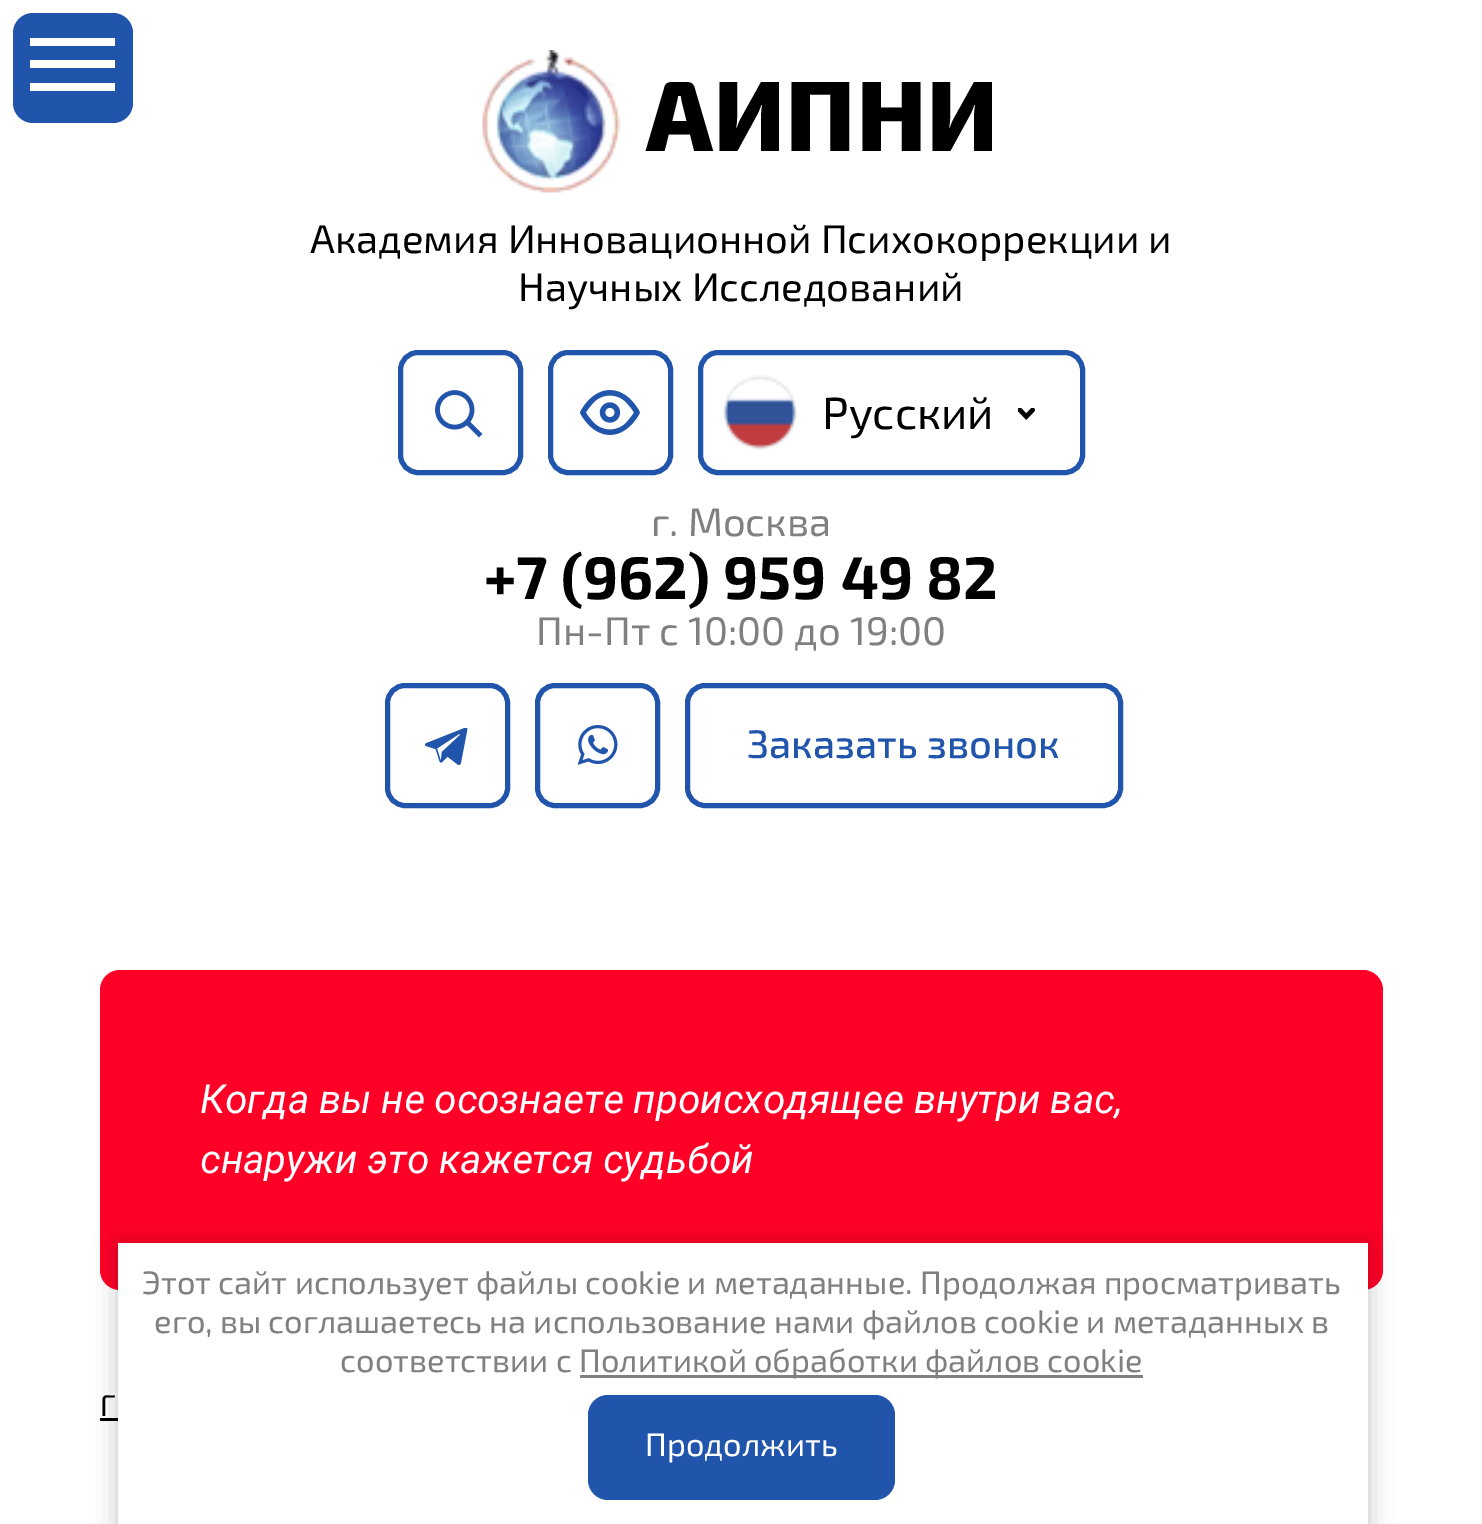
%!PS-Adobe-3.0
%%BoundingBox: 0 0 1482 1524
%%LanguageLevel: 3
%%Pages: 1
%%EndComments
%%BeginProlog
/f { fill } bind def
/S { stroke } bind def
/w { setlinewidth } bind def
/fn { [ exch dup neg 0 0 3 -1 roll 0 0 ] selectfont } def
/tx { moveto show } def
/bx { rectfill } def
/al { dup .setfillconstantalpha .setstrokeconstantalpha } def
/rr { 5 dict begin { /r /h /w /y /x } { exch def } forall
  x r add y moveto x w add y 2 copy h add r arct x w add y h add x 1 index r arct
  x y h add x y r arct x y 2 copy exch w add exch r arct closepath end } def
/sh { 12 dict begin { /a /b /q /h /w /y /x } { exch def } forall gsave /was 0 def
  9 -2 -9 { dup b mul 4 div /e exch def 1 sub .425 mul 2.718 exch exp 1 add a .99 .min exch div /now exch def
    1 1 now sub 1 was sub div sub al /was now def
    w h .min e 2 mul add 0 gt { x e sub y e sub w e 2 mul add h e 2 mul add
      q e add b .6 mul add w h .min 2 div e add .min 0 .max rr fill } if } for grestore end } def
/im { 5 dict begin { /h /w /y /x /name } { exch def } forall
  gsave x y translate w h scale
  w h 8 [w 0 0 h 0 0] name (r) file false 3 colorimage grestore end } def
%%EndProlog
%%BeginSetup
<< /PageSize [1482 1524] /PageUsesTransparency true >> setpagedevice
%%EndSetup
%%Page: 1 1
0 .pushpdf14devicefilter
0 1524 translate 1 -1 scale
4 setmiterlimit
1 setgray
0 0 1482 1524 bx
0.129 0.333 0.671 setrgbcolor
13 13 120 110 20 rr f
1 setgray
30 38 85 8 bx
30 60 85 8 bx
30 83 85 8 bx
(image0.raw) 482 50 138 143 im
/Exo2-ExtraBold 100 fn
0 setgray
(АИПНИ) 646 151 tx
/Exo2-Regular 40 fn
(Академия Инновационной Психокоррекции и) 310 253 tx
(Научных Исследований) 518 301 tx
(image1.raw) 435 390 48 48 im
0.129 0.333 0.671 setrgbcolor
5 w
400.5 352.5 120 120 17.5 rr S
(image2.raw) 580 390 60 45 im
550.5 352.5 120 120 17.5 rr S
700.5 352.5 382 120 17.5 rr S
(image3.raw) 722 375 76 75 im
/Exo2-Regular 45 fn
0 setgray
(Русский) 822 429 tx
(image4.raw) 1018 408 17 12 im
/Exo2-Regular 40 fn
0.502 setgray
(г. Москва) 651 536 tx
/Exo2-Bold 60 fn
0 setgray
(+7 \(962\) 959 49 82) 484 599 tx
/Exo2-Regular 40 fn
0.502 setgray
(Пн-Пт с 10:00 до 19:00) 536 645 tx
0.129 0.333 0.671 setrgbcolor
387.5 685.5 120 120 17.5 rr S
(image5.raw) 425 728 43 37 im
537.5 685.5 120 120 17.5 rr S
(image6.raw) 578 725 40 40 im
687.5 685.5 433 120 17.5 rr S
/Exo2-Medium 40 fn
(Заказать звонок) 747 758 tx
1 0.004 0.149 setrgbcolor
100 970 1283 320 20 rr f
/Roboto-Italic 40 fn
1 setgray
(Когда вы не осознаете происходящее внутри вас,) 200 1113 tx
(снаружи это кажется судьбой) 200 1173 tx
/Exo2-Regular 30 fn
0 setgray
(Г) 100 1416 tx
100 1418 18 3 bx
118 1245 1250 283 0 12.5 0.23 sh
1 setgray
118 1243 1250 281 bx
/Exo2-Regular 32.5 fn
0.502 setgray
(Этот сайт использует файлы cookie и метаданные. Продолжая просматривать) 142 1294 tx
(его, вы соглашаетесь на использование нами файлов cookie и метаданных в) 154 1333 tx
(соответствии с) 340 1372 tx
580 1375 563 3 bx
(Политикой обработки файлов cookie) 579 1372 tx
0.129 0.333 0.671 setrgbcolor
588 1395 307 105 20 rr f
1 setgray
(Продолжить) 645 1456 tx
.poppdf14devicefilter showpage
%%EOF
